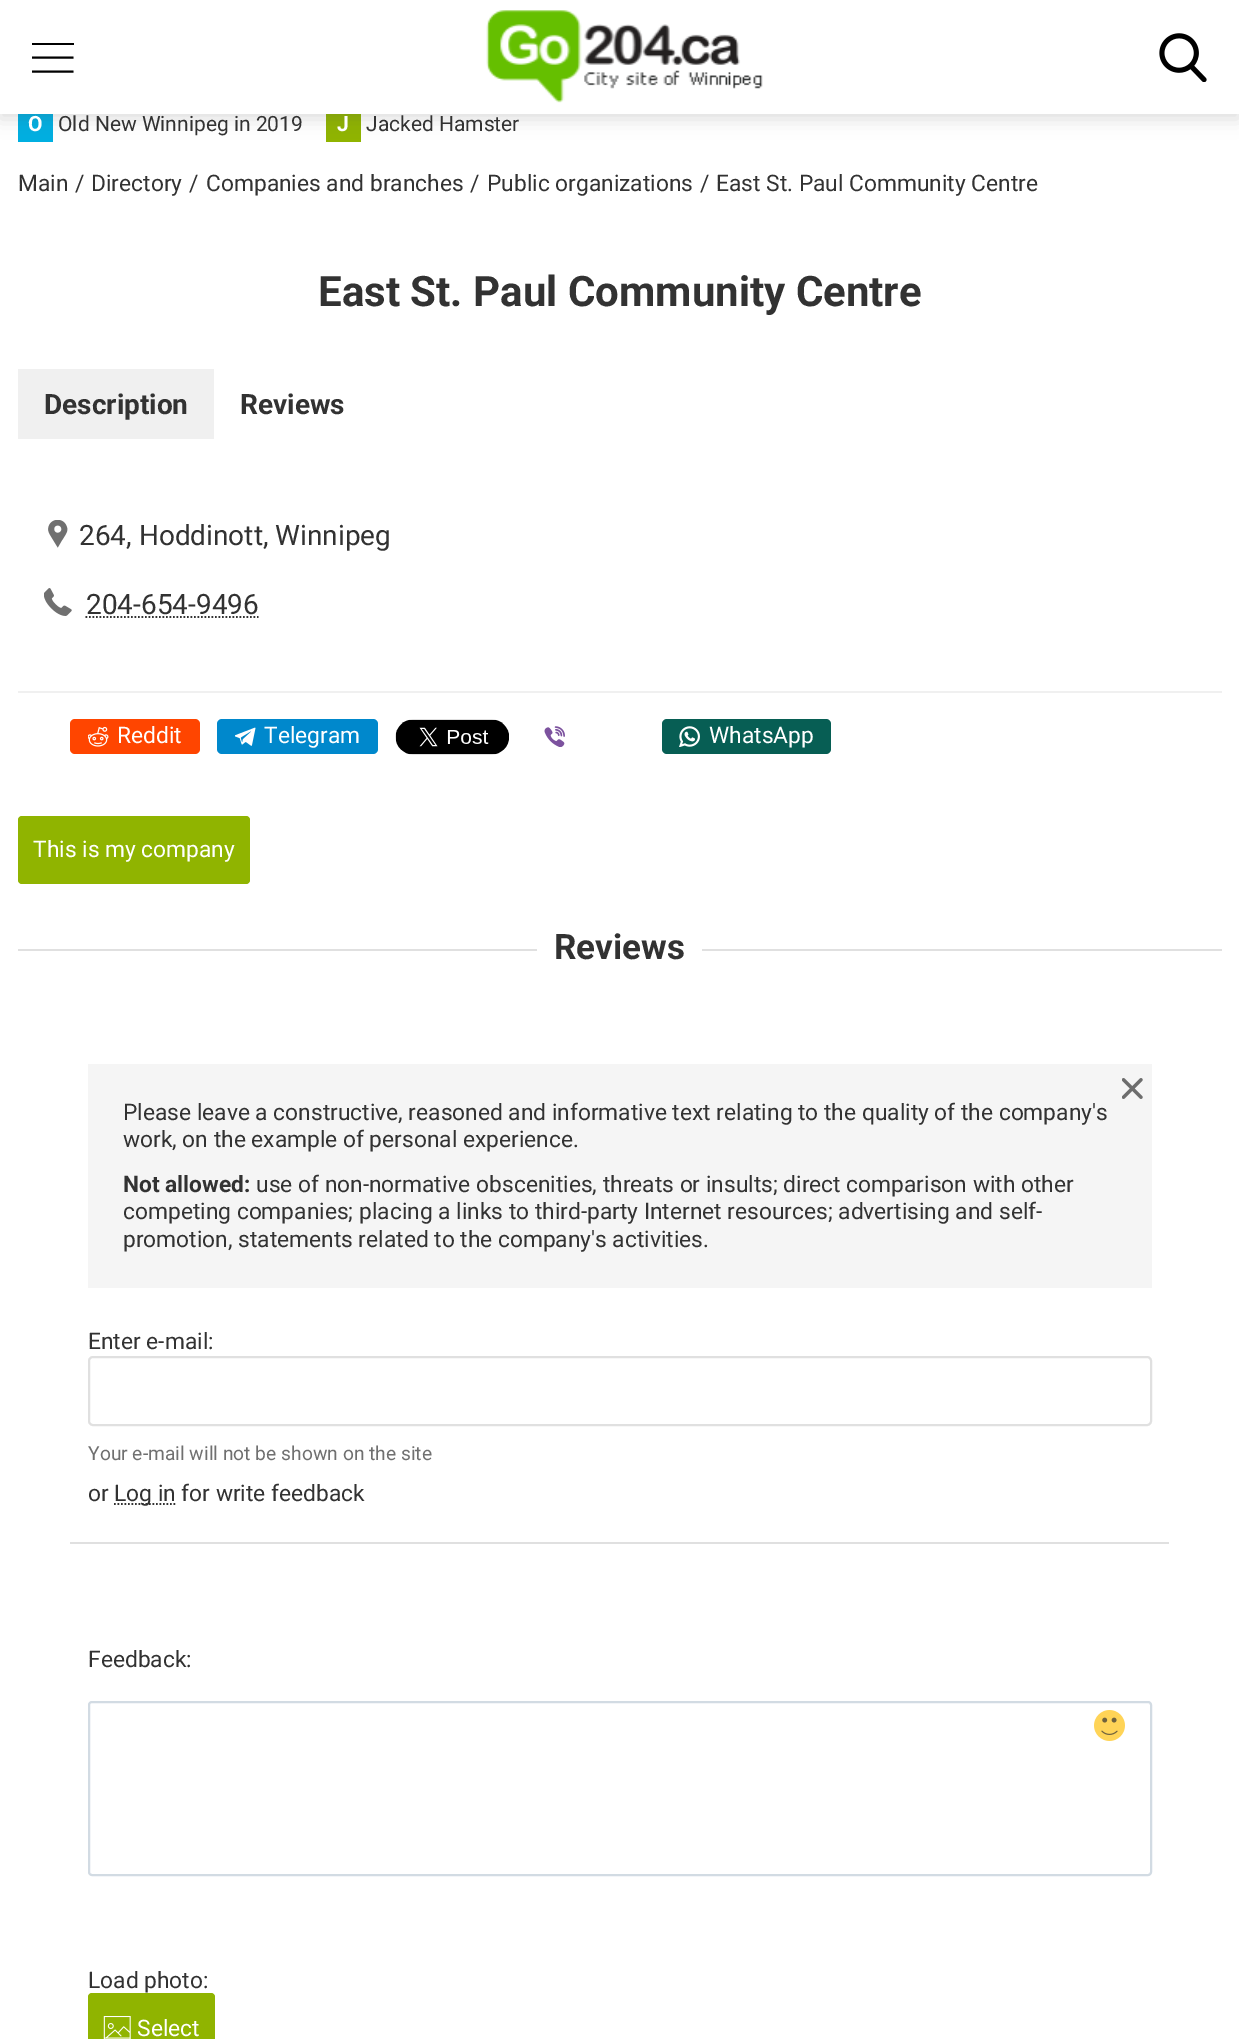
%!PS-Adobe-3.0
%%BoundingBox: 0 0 1239 2039
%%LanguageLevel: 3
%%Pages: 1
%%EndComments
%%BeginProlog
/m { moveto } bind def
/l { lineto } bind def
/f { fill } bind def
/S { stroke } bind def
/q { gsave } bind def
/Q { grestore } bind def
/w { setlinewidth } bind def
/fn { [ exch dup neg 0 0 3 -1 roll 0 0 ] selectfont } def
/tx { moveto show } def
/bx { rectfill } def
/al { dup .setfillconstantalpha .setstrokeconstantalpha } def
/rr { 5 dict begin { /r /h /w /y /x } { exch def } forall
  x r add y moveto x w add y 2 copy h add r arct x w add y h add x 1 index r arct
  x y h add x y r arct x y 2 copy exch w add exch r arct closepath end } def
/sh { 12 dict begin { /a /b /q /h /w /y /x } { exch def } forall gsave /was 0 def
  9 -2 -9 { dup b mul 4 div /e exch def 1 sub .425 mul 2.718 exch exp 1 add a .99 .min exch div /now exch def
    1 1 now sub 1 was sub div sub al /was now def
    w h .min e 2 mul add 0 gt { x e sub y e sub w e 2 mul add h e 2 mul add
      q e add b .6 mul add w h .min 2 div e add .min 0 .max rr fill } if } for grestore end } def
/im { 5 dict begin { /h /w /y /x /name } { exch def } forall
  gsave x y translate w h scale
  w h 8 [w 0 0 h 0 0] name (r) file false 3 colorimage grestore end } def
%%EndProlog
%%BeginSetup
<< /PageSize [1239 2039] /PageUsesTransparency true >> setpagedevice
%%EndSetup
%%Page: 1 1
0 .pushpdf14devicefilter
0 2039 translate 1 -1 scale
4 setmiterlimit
1 setgray
0 0 1239 2039 bx
0 0.686 0.882 setrgbcolor
18 114 35 28 bx
0.565 0.706 0 setrgbcolor
326 114 35 28 bx
0.306 setgray
0 5 1239 114 0 9 0.2 sh
1 setgray
0 0 1239 114 bx
0 setgray
32 43 42 2 bx
q
32 37 42 42 rectclip
2.1 w
31.5 71.5 m 73.5 71.5 l 31.5 57.5 m 73.5 57.5 l S
Q
(image0.raw) 486 10 277 93 im
(image1.raw) 1159 33 48 49 im
/Roboto-Bold 21 fn
1 setgray
(O) 28 131 tx
/Roboto-Regular 21 fn
0.196 setgray
(Old New Winnipeg in 2019) 58 131 tx
/Roboto-Bold 21 fn
1 setgray
(J) 337 131 tx
/Roboto-Regular 21 fn
0.196 setgray
(Jacked Hamster) 366 131 tx
/Roboto-Regular 22.75 fn
(Main) 18 191 tx
(/) 75 191 tx
(Directory) 91 191 tx
(/) 189 191 tx
(Companies and branches) 206 191 tx
(/) 470 191 tx
(Public organizations) 487 191 tx
(/) 700 191 tx
(East St. Paul Community Centre) 716 191 tx
/Roboto-Bold 42 fn
(East St. Paul Community Centre) 318 306 tx
0.941 setgray
18 369 196 70 bx
/Roboto-Bold 28 fn
0.196 setgray
(Description) 44 414 tx
(Reviews) 240 414 tx
(image2.raw) 48 520 20 28 im
/Roboto-Regular 28 fn
(264, Hoddinott, Winnipeg) 79 545 tx
(image3.raw) 44 588 28 28 im
(204-654-9496) 86 614 tx
1.8 w
[1.75 1.75] 0 setdash
85.5 617 m 258.5 617 l S
0.941 setgray
18 691 1204 2 bx
1 0.271 0 setrgbcolor
70 719 130 35 5 rr f
(image4.raw) 88 726 21 21 im
/Roboto-Regular 22.75 fn
1 setgray
(Reddit) 117 743 tx
0 0.533 0.8 setrgbcolor
217 719 161 35 5 rr f
(image5.raw) 235 727 21 19 im
1 setgray
(Telegram) 264 743 tx
(image6.raw) 395 719 114 36 im
(image7.raw) 544 726 21 21 im
0.027 0.369 0.329 setrgbcolor
662 719 169 35 5 rr f
(image8.raw) 679 726 21 21 im
1 setgray
(WhatsApp) 709 743 tx
0.565 0.706 0 setrgbcolor
18 816 232 68 4 rr f
1 setgray
(This is my company) 33 857 tx
0.878 setgray
18 949 519 2 bx
/Roboto-Bold 35 fn
0.196 setgray
(Reviews) 554 959 tx
0.878 setgray
702 949 520 2 bx
0.961 setgray
88 1064 1064 224 bx
(image9.raw) 1122 1078 21 21 im
/Roboto-Regular 22.75 fn
0.196 setgray
(Please leave a constructive, reasoned and informative text relating to the quality of the company's) 123 1120 tx
(work, on the example of personal experience.) 123 1147 tx
/Roboto-Bold 22.75 fn
(Not allowed:) 123 1192 tx
/Roboto-Regular 22.75 fn
(use of non-normative obscenities, threats or insults; direct comparison with other) 256 1192 tx
(competing companies; placing a links to third-party Internet resources; advertising and self-) 123 1219 tx
(promotion, statements related to the company's activities.) 123 1247 tx
0.878 setgray
70 1542 1099 2 bx
0.196 setgray
(Enter e-mail:) 88 1349 tx
0.878 setgray
2 w
[] 0 setdash
89 1357 1062 68 4 rr S
/Roboto-Regular 19.25 fn
0.439 setgray
(Your e-mail will not be shown on the site) 88 1460 tx
/Roboto-Regular 22.75 fn
0.196 setgray
(or) 88 1501 tx
1.8 w
[1.75 1.75] 0 setdash
114 1504 m 175.5 1504 l S
(Log in for write feedback) 114 1501 tx
(Feedback:) 88 1667 tx
0.824 0.859 0.89 setrgbcolor
2 w
[] 0 setdash
89 1702 1062 173 3 rr S
(image10.raw) 1094 1710 31 31 im
0.196 setgray
(Load photo:) 88 1988 tx
0.565 0.706 0 setrgbcolor
88 1993 127 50 4 rr f
(image11.raw) 103 2016 28 23 im
1 setgray
(Select) 137 2036 tx
.poppdf14devicefilter showpage
%%EOF
